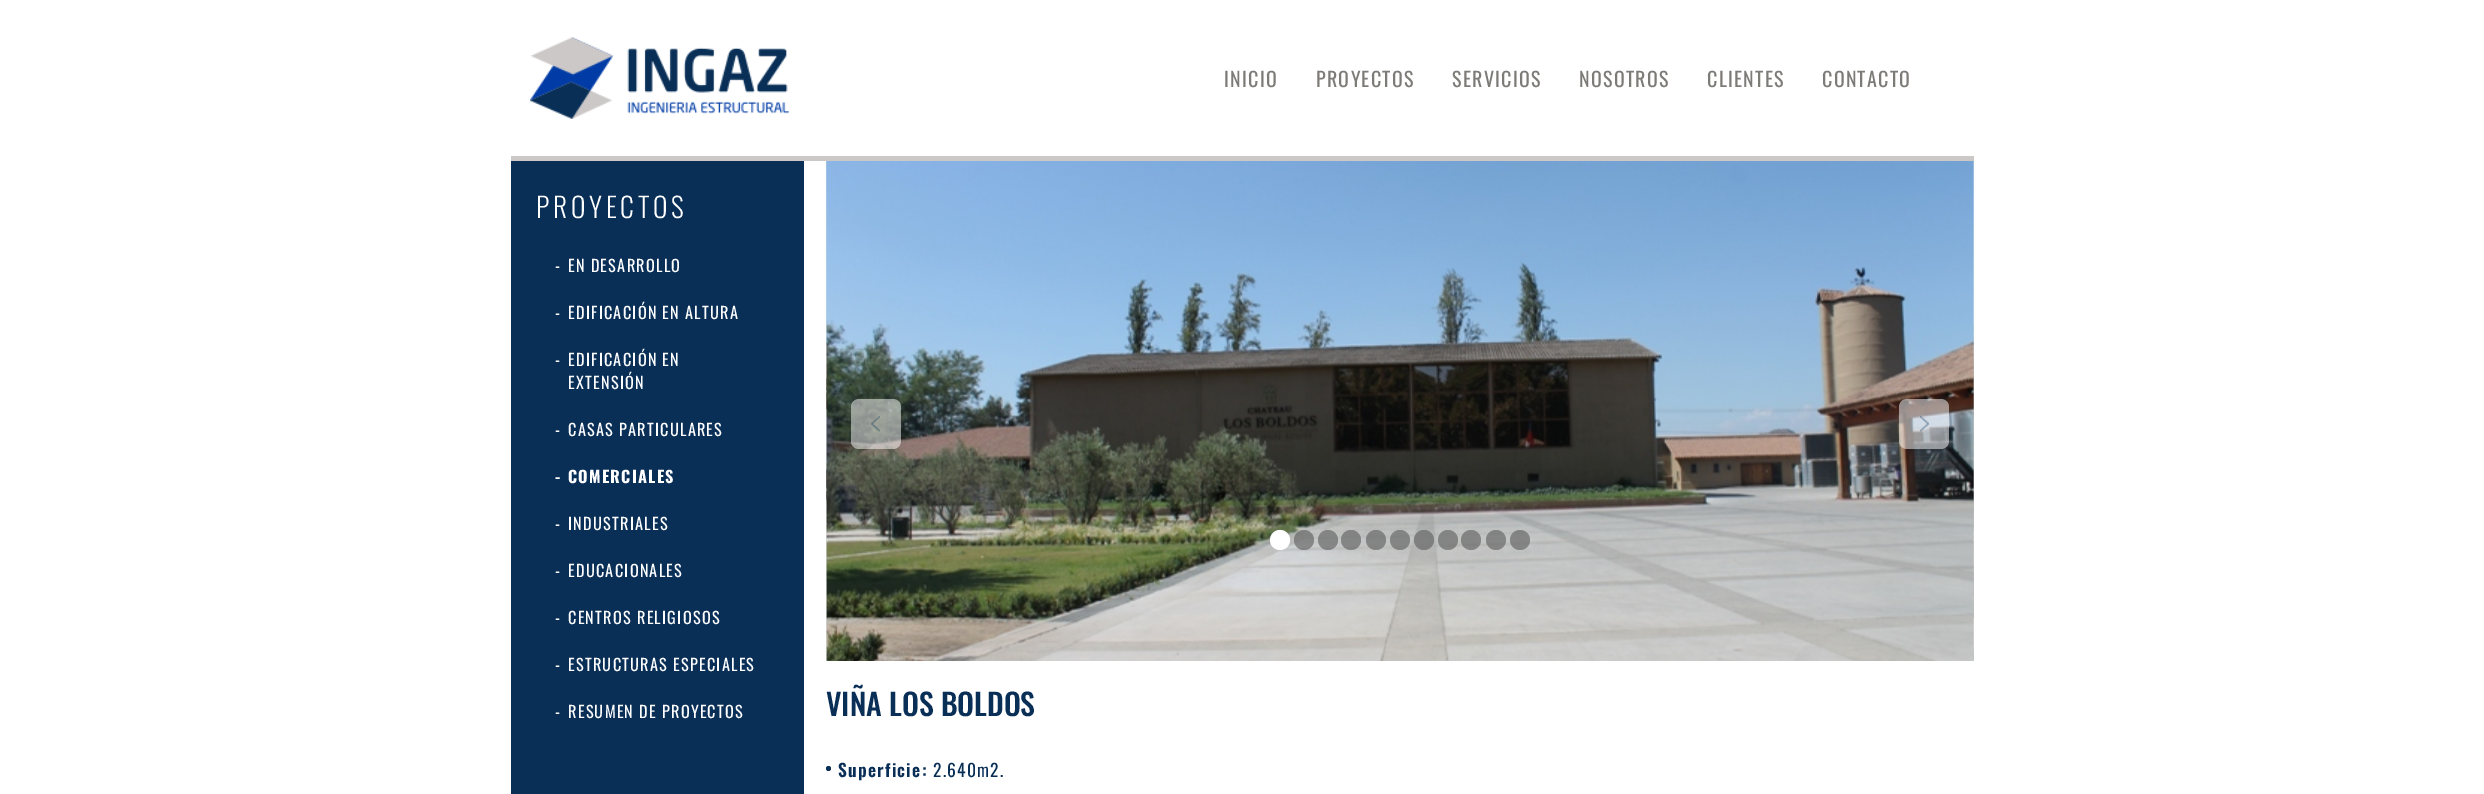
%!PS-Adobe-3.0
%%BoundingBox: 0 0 2484 794
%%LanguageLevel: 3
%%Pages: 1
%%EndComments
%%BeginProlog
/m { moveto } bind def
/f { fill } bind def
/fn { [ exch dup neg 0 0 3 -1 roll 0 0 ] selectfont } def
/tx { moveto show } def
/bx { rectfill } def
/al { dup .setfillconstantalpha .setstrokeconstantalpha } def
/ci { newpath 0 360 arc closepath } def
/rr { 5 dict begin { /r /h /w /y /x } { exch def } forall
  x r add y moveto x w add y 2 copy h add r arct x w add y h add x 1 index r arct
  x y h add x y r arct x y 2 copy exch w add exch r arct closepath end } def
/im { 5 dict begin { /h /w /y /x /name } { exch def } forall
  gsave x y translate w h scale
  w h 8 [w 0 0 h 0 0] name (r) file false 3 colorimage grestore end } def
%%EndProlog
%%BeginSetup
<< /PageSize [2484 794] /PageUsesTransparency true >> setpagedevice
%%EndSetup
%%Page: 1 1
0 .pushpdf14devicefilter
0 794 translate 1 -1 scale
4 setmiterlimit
1 setgray
0 0 2484 794 bx
0.796 0.784 0.78 setrgbcolor
511 156 1463 5 bx
(image0.raw) 530 37 259 82 im
/Oswald-Regular 20 fn
0.49 0.482 0.471 setrgbcolor
1224 87 m 1.25 0 (INICIO) ashow
1316 87 m 1.25 0 (PROYECTOS) ashow
1452 87 m 1.25 0 (SERVICIOS) ashow
1579 87 m 1.25 0 (NOSOTROS) ashow
1707 87 m 1.25 0 (CLIENTES) ashow
1822 87 m 1.25 0 (CONTACTO) ashow
0.035 0.184 0.341 setrgbcolor
511 161 293 633 bx
/Oswald-Light 27.5 fn
1 setgray
536 218 m 3.75 0 (PROYECTOS) ashow
/Oswald-Regular 16.25 fn
555 272 m 1.25 0 (-) ashow
568 272 m 1.25 0 (EN DESARROLLO) ashow
555 319 m 1.25 0 (-) ashow
568 319 m 1.25 0 (EDIFICACIÓN EN ALTURA) ashow
555 366 m 1.25 0 (-) ashow
568 366 m 1.25 0 (EDIFICACIÓN EN) ashow
568 389 m 1.25 0 (EXTENSIÓN) ashow
555 436 m 1.25 0 (-) ashow
568 436 m 1.25 0 (CASAS PARTICULARES) ashow
/Oswald-Bold 16.25 fn
555 483 m 1.25 0 (-) ashow
568 483 m 1.25 0 (COMERCIALES) ashow
/Oswald-Regular 16.25 fn
555 530 m 1.25 0 (-) ashow
568 530 m 1.25 0 (INDUSTRIALES) ashow
555 577 m 1.25 0 (-) ashow
568 577 m 1.25 0 (EDUCACIONALES) ashow
555 624 m 1.25 0 (-) ashow
568 624 m 1.25 0 (CENTROS RELIGIOSOS) ashow
555 671 m 1.25 0 (-) ashow
568 671 m 1.25 0 (ESTRUCTURAS ESPECIALES) ashow
555 718 m 1.25 0 (-) ashow
568 718 m 1.25 0 (RESUMEN DE PROYECTOS) ashow
(image1.raw) 826 161 1148 500 im
0.5 al
851 399 50 50 8 rr f
1 al
(image2.raw) 871 416 9 16 im
0.5 al
1899 399 50 50 8 rr f
1 al
(image3.raw) 1920 416 9 16 im
1280 540 10 ci f
0.6 al
0.353 setgray
1304 540 10 ci f
1328 540 10 ci f
1351 540 10 ci f
1376 540 10 ci f
1400 540 10 ci f
1424 540 10 ci f
1448 540 10 ci f
1471 540 10 ci f
1496 540 10 ci f
1520 540 10 ci f
/Oswald-Medium 30 fn
1 al
0.035 0.184 0.341 setrgbcolor
(VIÑA LOS BOLDOS) 826 716 tx
828.5 768.5 2.5 ci f
/Oswald-SemiBold 17.5 fn
838 777 m 1.25 0 (Superficie:) ashow
/Oswald-Regular 17.5 fn
933 777 m 1.25 0 (2.640m2.) ashow
.poppdf14devicefilter showpage
%%EOF
